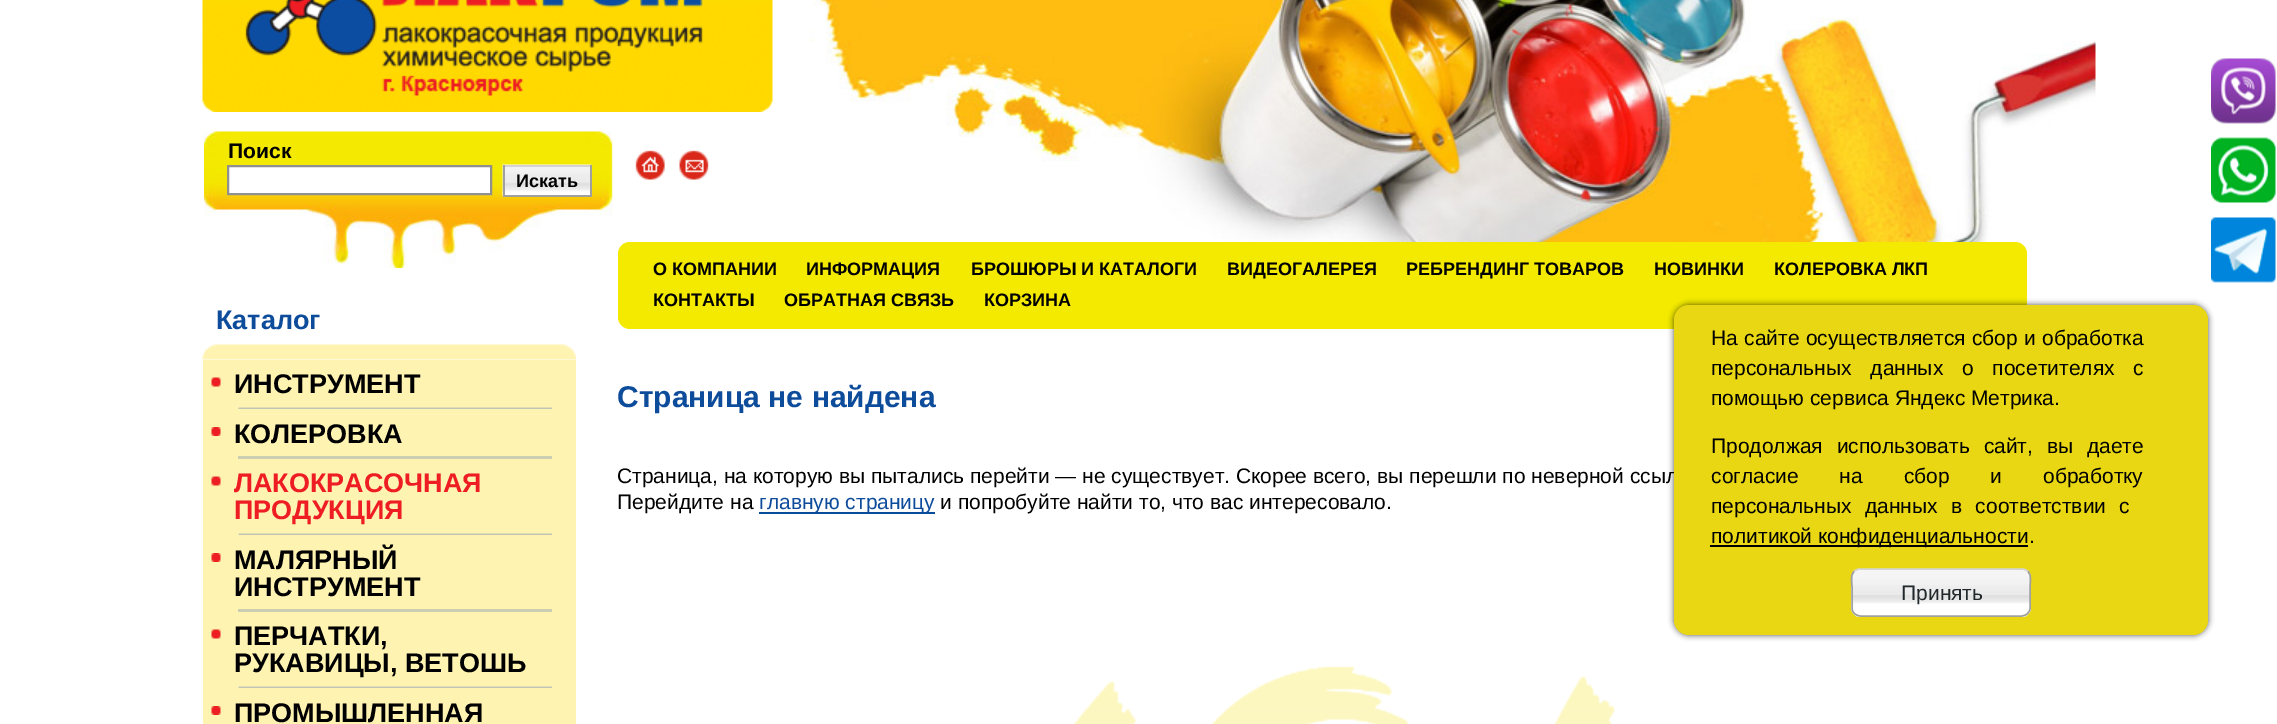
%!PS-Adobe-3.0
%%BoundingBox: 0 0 2277 724
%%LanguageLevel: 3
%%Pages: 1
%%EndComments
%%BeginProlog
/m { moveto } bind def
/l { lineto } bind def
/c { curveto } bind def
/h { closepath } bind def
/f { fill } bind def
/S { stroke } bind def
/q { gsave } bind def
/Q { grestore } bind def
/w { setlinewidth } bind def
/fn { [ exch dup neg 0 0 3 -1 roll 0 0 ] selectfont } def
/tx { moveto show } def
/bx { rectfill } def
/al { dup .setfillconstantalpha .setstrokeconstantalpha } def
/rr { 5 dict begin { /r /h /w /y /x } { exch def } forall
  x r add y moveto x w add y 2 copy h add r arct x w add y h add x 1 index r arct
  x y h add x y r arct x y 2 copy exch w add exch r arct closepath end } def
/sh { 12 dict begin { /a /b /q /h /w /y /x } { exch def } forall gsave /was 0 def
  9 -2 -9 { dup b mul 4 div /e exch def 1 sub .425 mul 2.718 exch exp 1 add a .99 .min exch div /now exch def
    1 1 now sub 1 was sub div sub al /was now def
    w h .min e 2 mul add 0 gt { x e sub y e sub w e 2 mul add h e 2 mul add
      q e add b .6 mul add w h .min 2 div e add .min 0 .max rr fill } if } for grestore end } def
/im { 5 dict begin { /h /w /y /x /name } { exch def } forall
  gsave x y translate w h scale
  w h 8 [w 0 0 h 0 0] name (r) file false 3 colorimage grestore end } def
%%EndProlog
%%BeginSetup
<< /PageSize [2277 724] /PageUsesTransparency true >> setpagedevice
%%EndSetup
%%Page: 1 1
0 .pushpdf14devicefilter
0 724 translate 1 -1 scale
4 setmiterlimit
1 setgray
0 0 2277 724 bx
(image0.raw) 808 0 1288 286 im
(image1.raw) 202 0 571 112 im
(image2.raw) 204 131 409 137 im
/LiberationSans-Bold 21 fn
0 setgray
(Поиск) 228 158 tx
1 setgray
228 166 m 491 166 l 491 194 l 228 194 l h q f Q
0.565 setgray
2 w
S
(image3.raw) 502 164 89 32 im
0.831 0.827 0.827 setrgbcolor
503 165 88 2 bx
0.627 setgray
590 165 2 32 bx
503 195 88 2 bx
503 165 2 32 bx
/LiberationSans-Bold 18 fn
0 setgray
(Искать) 516 187 tx
(image4.raw) 635 150 74 30 im
0.953 0.918 0 setrgbcolor
618 242 1409 87 12 rr f
0 setgray
(О КОМПАНИИ) 653 275 tx
(ИНФОРМАЦИЯ) 806 275 tx
(БРОШЮРЫ И КАТАЛОГИ) 971 275 tx
(ВИДЕОГАЛЕРЕЯ) 1227 275 tx
(РЕБРЕНДИНГ ТОВАРОВ) 1406 275 tx
(НОВИНКИ) 1654 275 tx
(КОЛЕРОВКА ЛКП) 1774 275 tx
(КОНТАКТЫ) 653 306 tx
(ОБРАТНАЯ СВЯЗЬ) 784 306 tx
(КОРЗИНА) 984 306 tx
/LiberationSans-Bold 27 fn
0.051 0.294 0.608 setrgbcolor
(Каталог) 216 329 tx
(image5.raw) 202 344 374 16 im
1 0.953 0.698 setrgbcolor
203 360 373 364 bx
(image6.raw) 238 407 314 2 im
(image7.raw) 211 377 10 10 im
0 setgray
(ИНСТРУМЕНТ) 234 393 tx
0.8 0.808 0.706 setrgbcolor
238 456 314 3 bx
(image8.raw) 211 427 10 9 im
0 setgray
(КОЛЕРОВКА) 234 443 tx
(image6.raw) 238 533 314 2 im
(image7.raw) 211 476 10 10 im
0.933 0.11 0.137 setrgbcolor
(ЛАКОКРАСОЧНАЯ) 234 492 tx
(ПРОДУКЦИЯ) 234 519 tx
0.8 0.808 0.706 setrgbcolor
238 609 314 3 bx
(image8.raw) 211 553 10 9 im
0 setgray
(МАЛЯРНЫЙ) 234 569 tx
(ИНСТРУМЕНТ) 234 596 tx
(image6.raw) 238 686 314 2 im
(image7.raw) 211 629 10 10 im
(ПЕРЧАТКИ,) 234 645 tx
(РУКАВИЦЫ, ВЕТОШЬ) 234 672 tx
(image8.raw) 211 706 10 9 im
(ПРОМЫШЛЕННАЯ) 234 722 tx
/LiberationSans-Bold 30 fn
0.051 0.294 0.608 setrgbcolor
(Страница не найдена) 617 407 tx
/LiberationSans-Regular 21 fn
0 setgray
(Страница, на которую вы пытались перейти — не существует. Скорее всего, вы перешли по неверной ссыл) 617 483 tx
(Перейдите на) 617 509 tx
0.031 0.302 0.608 setrgbcolor
759 512 176 2 bx
0.051 0.294 0.608 setrgbcolor
(главную страницу) 759 509 tx
0 setgray
(и попробуйте найти то, что вас интересовало.) 940 509 tx
(image9.raw) 1073 666 543 58 im
1674 305 534 330 15 3 0.37 sh
(image10.raw) 2211 58 65 66 im
(image11.raw) 2211 137 65 66 im
(image12.raw) 2211 217 65 66 im
1674 305 534 330 15 3 0.37 sh
0.914 0.843 0.075 setrgbcolor
1674 305 534 330 15 rr f
0 setgray
1711 345 m 0.5 0 32 (На сайте осуществляется сбор и обработка) widthshow
1711 375 m 13 0 32 (персональных данных о посетителях с) widthshow
(помощью сервиса Яндекс Метрика.) 1711 405 tx
1711 453 m 8 0 32 (Продолжая использовать сайт, вы даете) widthshow
1711 483 m 35 0 32 (согласие на сбор и обработку) widthshow
1711 513 m 7.5 0 32 (персональных данных в соответствии с) widthshow
1710 545 318 2 bx
(политикой конфиденциальности.) 1711 543 tx
1 setgray
1851 569 180 48 9 rr f
(image13.raw) 1851 568 180 48 im
0.831 0.827 0.827 setrgbcolor
1.5 w
1854 571.5 m 1855.5 570 1858 569 1860 569 c 2022 569 l 2024 569 2026.5 570 2028 571.5 c S
0.627 setgray
2028 571.5 m 2032 575.5 2030 582.5 2030 587.5 c 2030 609 l 2029.5 613 2026 615.5 2022 616 c 1860 616 l 1856 615.5 1852.5 613 1852 609 c 1852 587.5 l 1852 582.5 1850 575.5 1854 571.5 c S
0.129 0.157 0.169 setrgbcolor
(Принять) 1901 600 tx
.poppdf14devicefilter showpage
%%EOF
